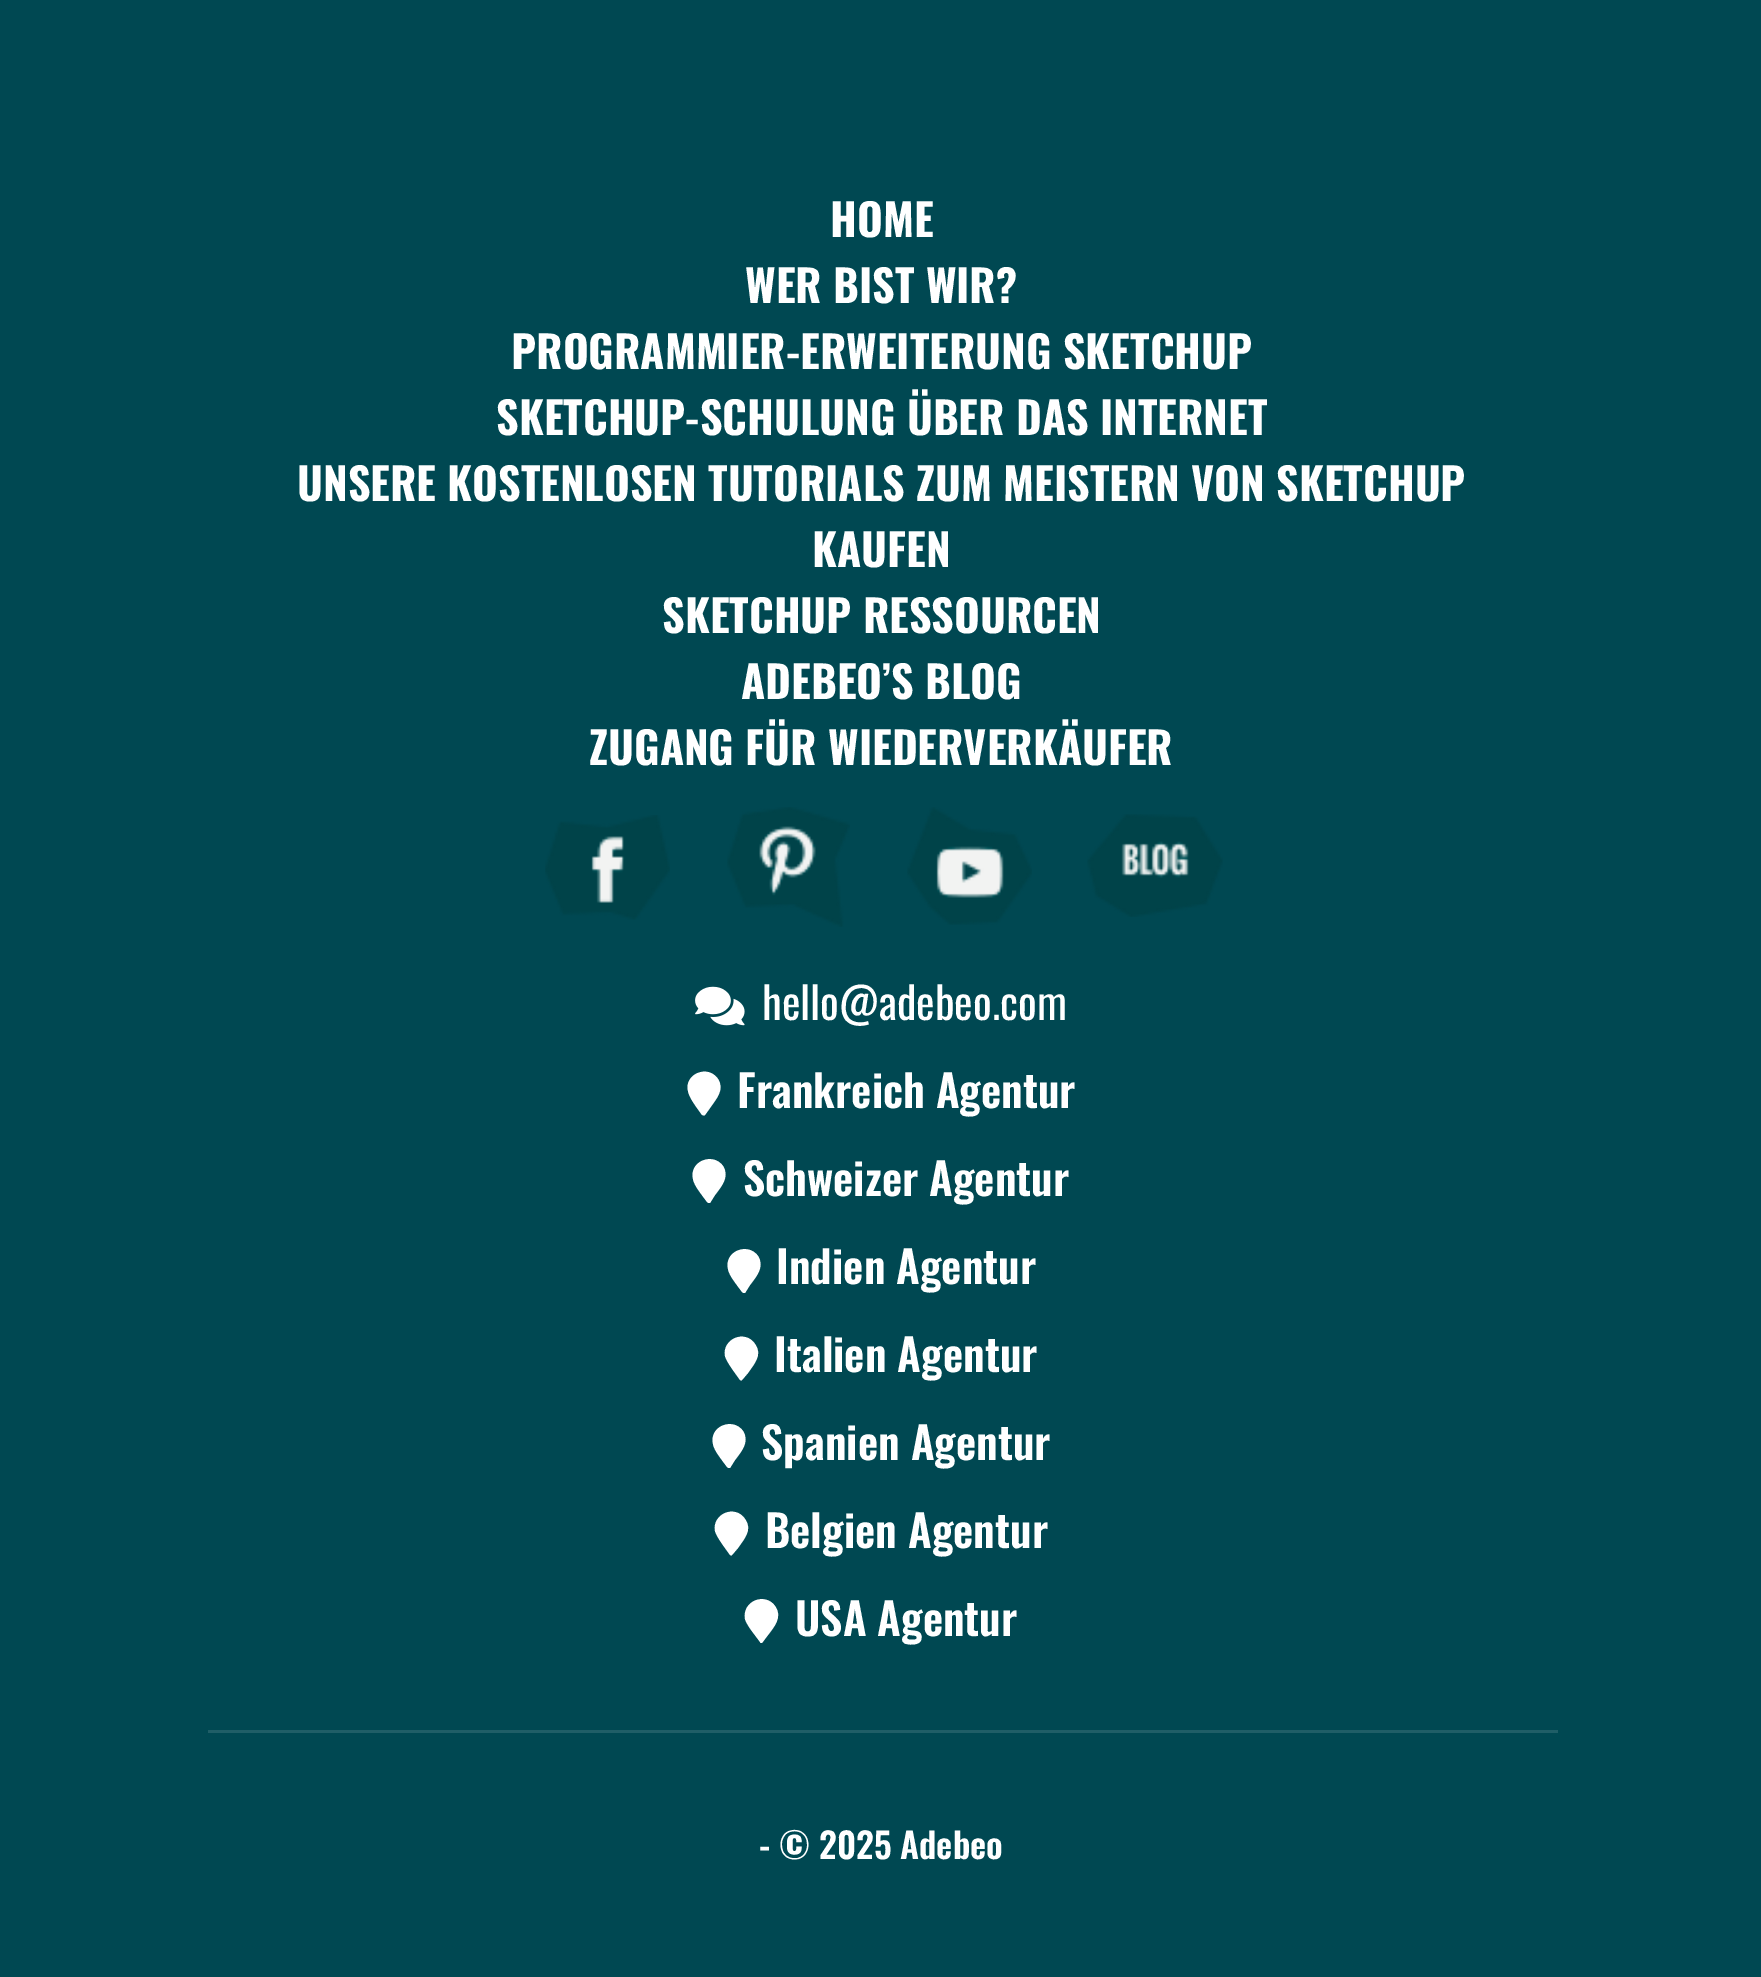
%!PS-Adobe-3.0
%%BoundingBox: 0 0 1761 1977
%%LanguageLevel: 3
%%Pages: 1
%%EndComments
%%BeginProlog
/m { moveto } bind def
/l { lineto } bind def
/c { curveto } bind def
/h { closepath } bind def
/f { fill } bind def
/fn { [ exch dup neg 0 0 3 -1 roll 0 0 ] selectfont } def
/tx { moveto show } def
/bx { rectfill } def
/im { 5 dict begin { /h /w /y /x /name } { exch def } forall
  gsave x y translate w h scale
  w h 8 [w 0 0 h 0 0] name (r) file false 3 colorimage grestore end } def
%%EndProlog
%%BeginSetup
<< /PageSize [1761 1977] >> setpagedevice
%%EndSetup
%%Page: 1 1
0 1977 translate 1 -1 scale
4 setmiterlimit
0 0.282 0.322 setrgbcolor
0 0 1761 1977 bx
/Oswald-Bold 44 fn
1 setgray
(HOME) 830 237 tx
(WER BIST WIR?) 745 303 tx
(PROGRAMMIER-ERWEITERUNG SKETCHUP) 511 369 tx
(SKETCHUP-SCHULUNG ÜBER DAS INTERNET) 496 435 tx
(UNSERE KOSTENLOSEN TUTORIALS ZUM MEISTERN VON SKETCHUP) 297 501 tx
(KAUFEN) 812 567 tx
(SKETCHUP RESSOURCEN) 662 633 tx
(ADEBEO’S BLOG) 741 699 tx
(ZUGANG FÜR WIEDERVERKÄUFER) 589 765 tx
(image0.raw) 545 815 125 105 im
(image1.raw) 727 807 123 120 im
(image2.raw) 907 807 125 118 im
(image3.raw) 1087 814 136 103 im
(image4.raw) 695 986 50 40 im
/Oswald-Regular 44 fn
(hello@adebeo.com) 762 1020 tx
702 1115 m 698 1109 689 1098 688 1091 c 684 1074 708 1064 718 1079 c 725 1090 716 1099 710 1108 c 705 1115 l 704 1116 703 1115 702 1115 c h f
/Oswald-SemiBold 44 fn
(Frankreich Agentur) 737 1108 tx
707 1202 m 703 1196 694 1186 693 1179 c 689 1161 713 1152 723 1166 c 730 1177 721 1187 715 1195 c 710 1203 l 709 1203 708 1203 707 1202 c h f
(Schweizer Agentur) 743 1196 tx
742 1292 m 738 1286 729 1276 728 1269 c 724 1251 748 1242 758 1256 c 765 1267 756 1277 750 1285 c 745 1293 l 744 1293 743 1293 742 1292 c h f
(Indien Agentur) 776 1284 tx
740 1380 m 736 1374 727 1363 725 1356 c 722 1339 745 1329 755 1344 c 763 1355 754 1364 748 1373 c 742 1380 l 742 1381 740 1380 740 1380 c h f
(Italien Agentur) 774 1372 tx
727 1467 m 723 1461 714 1451 713 1444 c 709 1426 733 1417 743 1431 c 750 1442 741 1452 735 1460 c 730 1468 l 729 1468 728 1468 727 1467 c h f
(Spanien Agentur) 761 1460 tx
730 1555 m 726 1549 717 1538 715 1531 c 712 1514 735 1504 745 1519 c 753 1530 744 1539 738 1548 c 732 1555 l 732 1556 730 1555 730 1555 c h f
(Belgien Agentur) 765 1548 tx
760 1642 m 756 1636 747 1626 745 1619 c 742 1601 765 1592 775 1606 c 783 1617 774 1627 768 1635 c 762 1643 l 762 1643 760 1643 760 1642 c h f
(USA Agentur) 795 1636 tx
0.122 0.369 0.404 setrgbcolor
208 1730 1350 3 bx
/Oswald-SemiBold 35.25 fn
1 setgray
(- © 2025 Adebeo) 759 1859 tx
showpage
%%EOF
